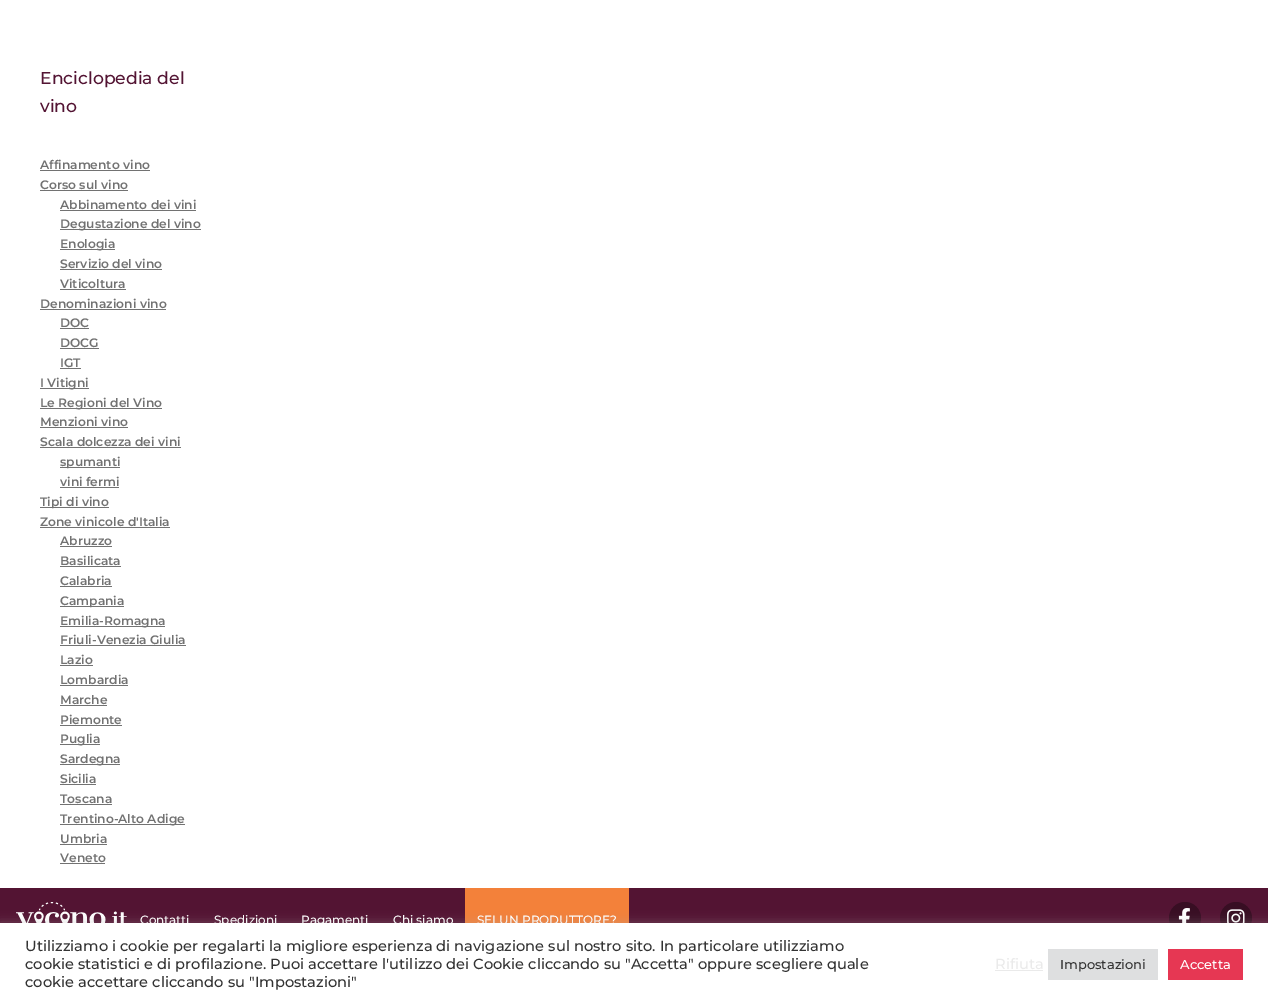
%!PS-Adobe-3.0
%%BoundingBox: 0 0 1268 1005
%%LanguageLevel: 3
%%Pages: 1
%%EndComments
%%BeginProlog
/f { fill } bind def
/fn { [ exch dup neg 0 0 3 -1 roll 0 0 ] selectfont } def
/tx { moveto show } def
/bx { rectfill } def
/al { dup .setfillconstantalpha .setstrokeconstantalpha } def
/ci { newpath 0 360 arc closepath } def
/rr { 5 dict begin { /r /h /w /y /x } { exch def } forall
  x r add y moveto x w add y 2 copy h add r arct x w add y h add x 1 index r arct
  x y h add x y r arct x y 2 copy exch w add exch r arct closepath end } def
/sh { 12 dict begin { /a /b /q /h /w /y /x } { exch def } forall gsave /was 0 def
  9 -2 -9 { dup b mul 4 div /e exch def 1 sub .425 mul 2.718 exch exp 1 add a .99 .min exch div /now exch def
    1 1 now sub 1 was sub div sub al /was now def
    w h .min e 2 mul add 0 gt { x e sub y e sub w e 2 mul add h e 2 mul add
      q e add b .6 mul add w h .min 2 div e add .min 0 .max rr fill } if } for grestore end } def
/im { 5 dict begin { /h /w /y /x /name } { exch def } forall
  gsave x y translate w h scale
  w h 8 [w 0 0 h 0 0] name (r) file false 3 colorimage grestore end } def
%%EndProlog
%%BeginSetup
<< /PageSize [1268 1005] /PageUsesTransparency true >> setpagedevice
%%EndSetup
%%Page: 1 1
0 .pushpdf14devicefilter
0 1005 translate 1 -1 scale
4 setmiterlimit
1 setgray
0 0 1268 1005 bx
/Montserrat-Medium 17.25 fn
0.325 0.078 0.2 setrgbcolor
(Enciclopedia del) 40 84 tx
(vino) 40 112 tx
/Montserrat-SemiBold 12.25 fn
0.447 setgray
(Affinamento vino) 40 169 tx
40 170 110 1 bx
(Corso sul vino) 40 189 tx
40 190 88 1 bx
(Abbinamento dei vini) 60 209 tx
60 210 136 1 bx
60 229 141 1 bx
(Degustazione del vino) 60 228 tx
60 249 55 1 bx
(Enologia) 60 248 tx
(Servizio del vino) 60 268 tx
60 269 102 1 bx
(Viticoltura) 60 288 tx
60 289 66 1 bx
(Denominazioni vino) 40 308 tx
40 309 126 1 bx
(DOC) 60 327 tx
60 328 29 1 bx
(DOCG) 60 347 tx
60 348 39 1 bx
(IGT) 60 367 tx
60 368 21 1 bx
40 388 49 1 bx
(I Vitigni) 40 387 tx
40 408 122 1 bx
(Le Regioni del Vino) 40 407 tx
(Menzioni vino) 40 426 tx
40 427 88 1 bx
(Scala dolcezza dei vini) 40 446 tx
40 447 141 1 bx
60 467 60 1 bx
(spumanti) 60 466 tx
(vini fermi) 60 486 tx
60 487 59 1 bx
40 507 69 1 bx
(Tipi di vino) 40 506 tx
(Zone vinicole d'Italia) 40 526 tx
40 527 130 1 bx
(Abruzzo) 60 545 tx
60 546 52 1 bx
(Basilicata) 60 565 tx
60 566 61 1 bx
(Calabria) 60 585 tx
60 586 52 1 bx
60 606 64 1 bx
(Campania) 60 605 tx
60 626 105 1 bx
(Emilia-Romagna) 60 625 tx
(Friuli-Venezia Giulia) 60 644 tx
60 645 126 1 bx
(Lazio) 60 664 tx
60 665 33 1 bx
(Lombardia) 60 684 tx
60 685 68 1 bx
(Marche) 60 704 tx
60 705 47 1 bx
(Piemonte) 60 724 tx
60 725 62 1 bx
60 744 40 1 bx
(Puglia) 60 743 tx
60 764 60 1 bx
(Sardegna) 60 763 tx
(Sicilia) 60 783 tx
60 784 36 1 bx
(Toscana) 60 803 tx
60 804 52 1 bx
60 824 125 1 bx
(Trentino-Alto Adige) 60 823 tx
(Umbria) 60 843 tx
60 844 47 1 bx
(Veneto) 60 862 tx
60 863 45 1 bx
0.325 0.078 0.2 setrgbcolor
0 888 1268 35 bx
(image0.raw) 16 902 111 21 im
/Montserrat-Medium 12 fn
1 setgray
(Contatti) 140 924 tx
(Spedizioni) 214 924 tx
(Pagamenti) 301 924 tx
(Chi siamo) 393 924 tx
0.953 0.506 0.227 setrgbcolor
465 888 164 35 bx
1 setgray
(SEI UN PRODUTTORE?) 477 924 tx
0.22 0.055 0.137 setrgbcolor
1185 918 16 ci f
(image1.raw) 1178 908 12 15 im
1236 918 16 ci f
(image2.raw) 1227 909 18 14 im
0.675 0.671 0.671 setrgbcolor
0 922 1268 82 0 5 0.3 sh
1 setgray
0 923 1268 82 bx
/Montserrat-Medium 14.67 fn
0.2 setgray
(Utilizziamo i cookie per regalarti la migliore esperienza di navigazione sul nostro sito. In particolare utilizziamo) 25 951 tx
(cookie statistici e di profilazione. Puoi accettare l'utilizzo dei Cookie cliccando su "Accetta" oppure scegliere quale) 25 969 tx
(cookie accettare cliccando su "Impostazioni") 25 987 tx
0.918 setgray
(Rifiuta) 995 969 tx
995 970 48 1 bx
0.871 0.875 0.878 setrgbcolor
1048 949 110 31 bx
/Montserrat-Medium 13 fn
0.2 setgray
(Impostazioni) 1060 969 tx
0.902 0.216 0.325 setrgbcolor
1168 949 75 31 bx
1 setgray
(Accetta) 1180 969 tx
.poppdf14devicefilter showpage
%%EOF
